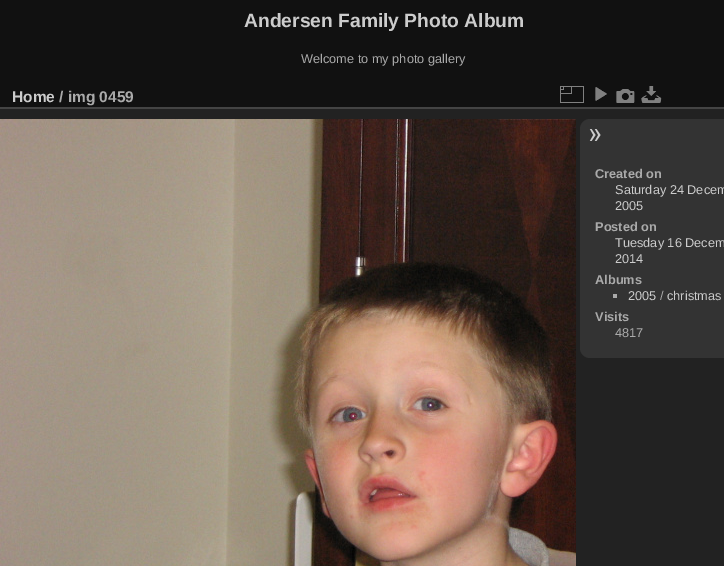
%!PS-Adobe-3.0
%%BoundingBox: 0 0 724 566
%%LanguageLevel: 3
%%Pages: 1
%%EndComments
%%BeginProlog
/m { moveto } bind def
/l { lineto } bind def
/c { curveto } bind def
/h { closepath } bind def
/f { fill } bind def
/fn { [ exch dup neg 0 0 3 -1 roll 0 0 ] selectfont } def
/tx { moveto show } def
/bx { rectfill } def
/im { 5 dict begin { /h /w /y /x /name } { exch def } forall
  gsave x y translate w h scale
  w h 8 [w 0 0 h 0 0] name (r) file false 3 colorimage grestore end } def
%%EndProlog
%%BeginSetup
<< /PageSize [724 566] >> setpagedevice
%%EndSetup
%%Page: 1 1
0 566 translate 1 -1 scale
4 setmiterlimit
0.067 setgray
0 0 724 566 bx
/LiberationSans-Bold 19.25 fn
0.8 setgray
(Andersen Family Photo Album) 244 27 tx
/LiberationSans-Regular 12.75 fn
0.667 setgray
(Welcome to my photo gallery) 301 63 tx
0.133 setgray
0 109 724 457 bx
0.267 setgray
0 107 724 2 bx
/LiberationSans-Bold 15.5 fn
0.8 setgray
(Home) 12 102 tx
0.667 setgray
(/ img 0459) 59 102 tx
(image0.raw) 560 86 24 17 im
(image1.raw) 595 87 12 14 im
(image2.raw) 616 89 19 14 im
(image3.raw) 641 86 21 17 im
(image4.raw) 0 119 576 447 im
0.2 setgray
590 119 m 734 119 l 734 358 l 590 358 l 584.5 358 580 353.5 580 348 c 580 129 l 580 123.5 584.5 119 590 119 c h f
(image5.raw) 589 129 12 12 im
/LiberationSans-Bold 12.75 fn
0.667 setgray
(Created on) 595 178 tx
/LiberationSans-Regular 12.75 fn
0.8 setgray
(Saturday 24 Decem) 615 194 tx
(2005) 615 210 tx
/LiberationSans-Bold 12.75 fn
0.667 setgray
(Posted on) 595 231 tx
/LiberationSans-Regular 12.75 fn
0.8 setgray
(Tuesday 16 Decem) 615 247 tx
(2014) 615 263 tx
/LiberationSans-Bold 12.75 fn
0.667 setgray
(Albums) 595 284 tx
613 294 4 4 bx
/LiberationSans-Regular 12.75 fn
0.8 setgray
(2005) 628 300 tx
0.667 setgray
(/) 660 300 tx
0.8 setgray
(christmas) 667 300 tx
/LiberationSans-Bold 12.75 fn
0.667 setgray
(Visits) 595 321 tx
/LiberationSans-Regular 12.75 fn
(4817) 615 337 tx
showpage
%%EOF
